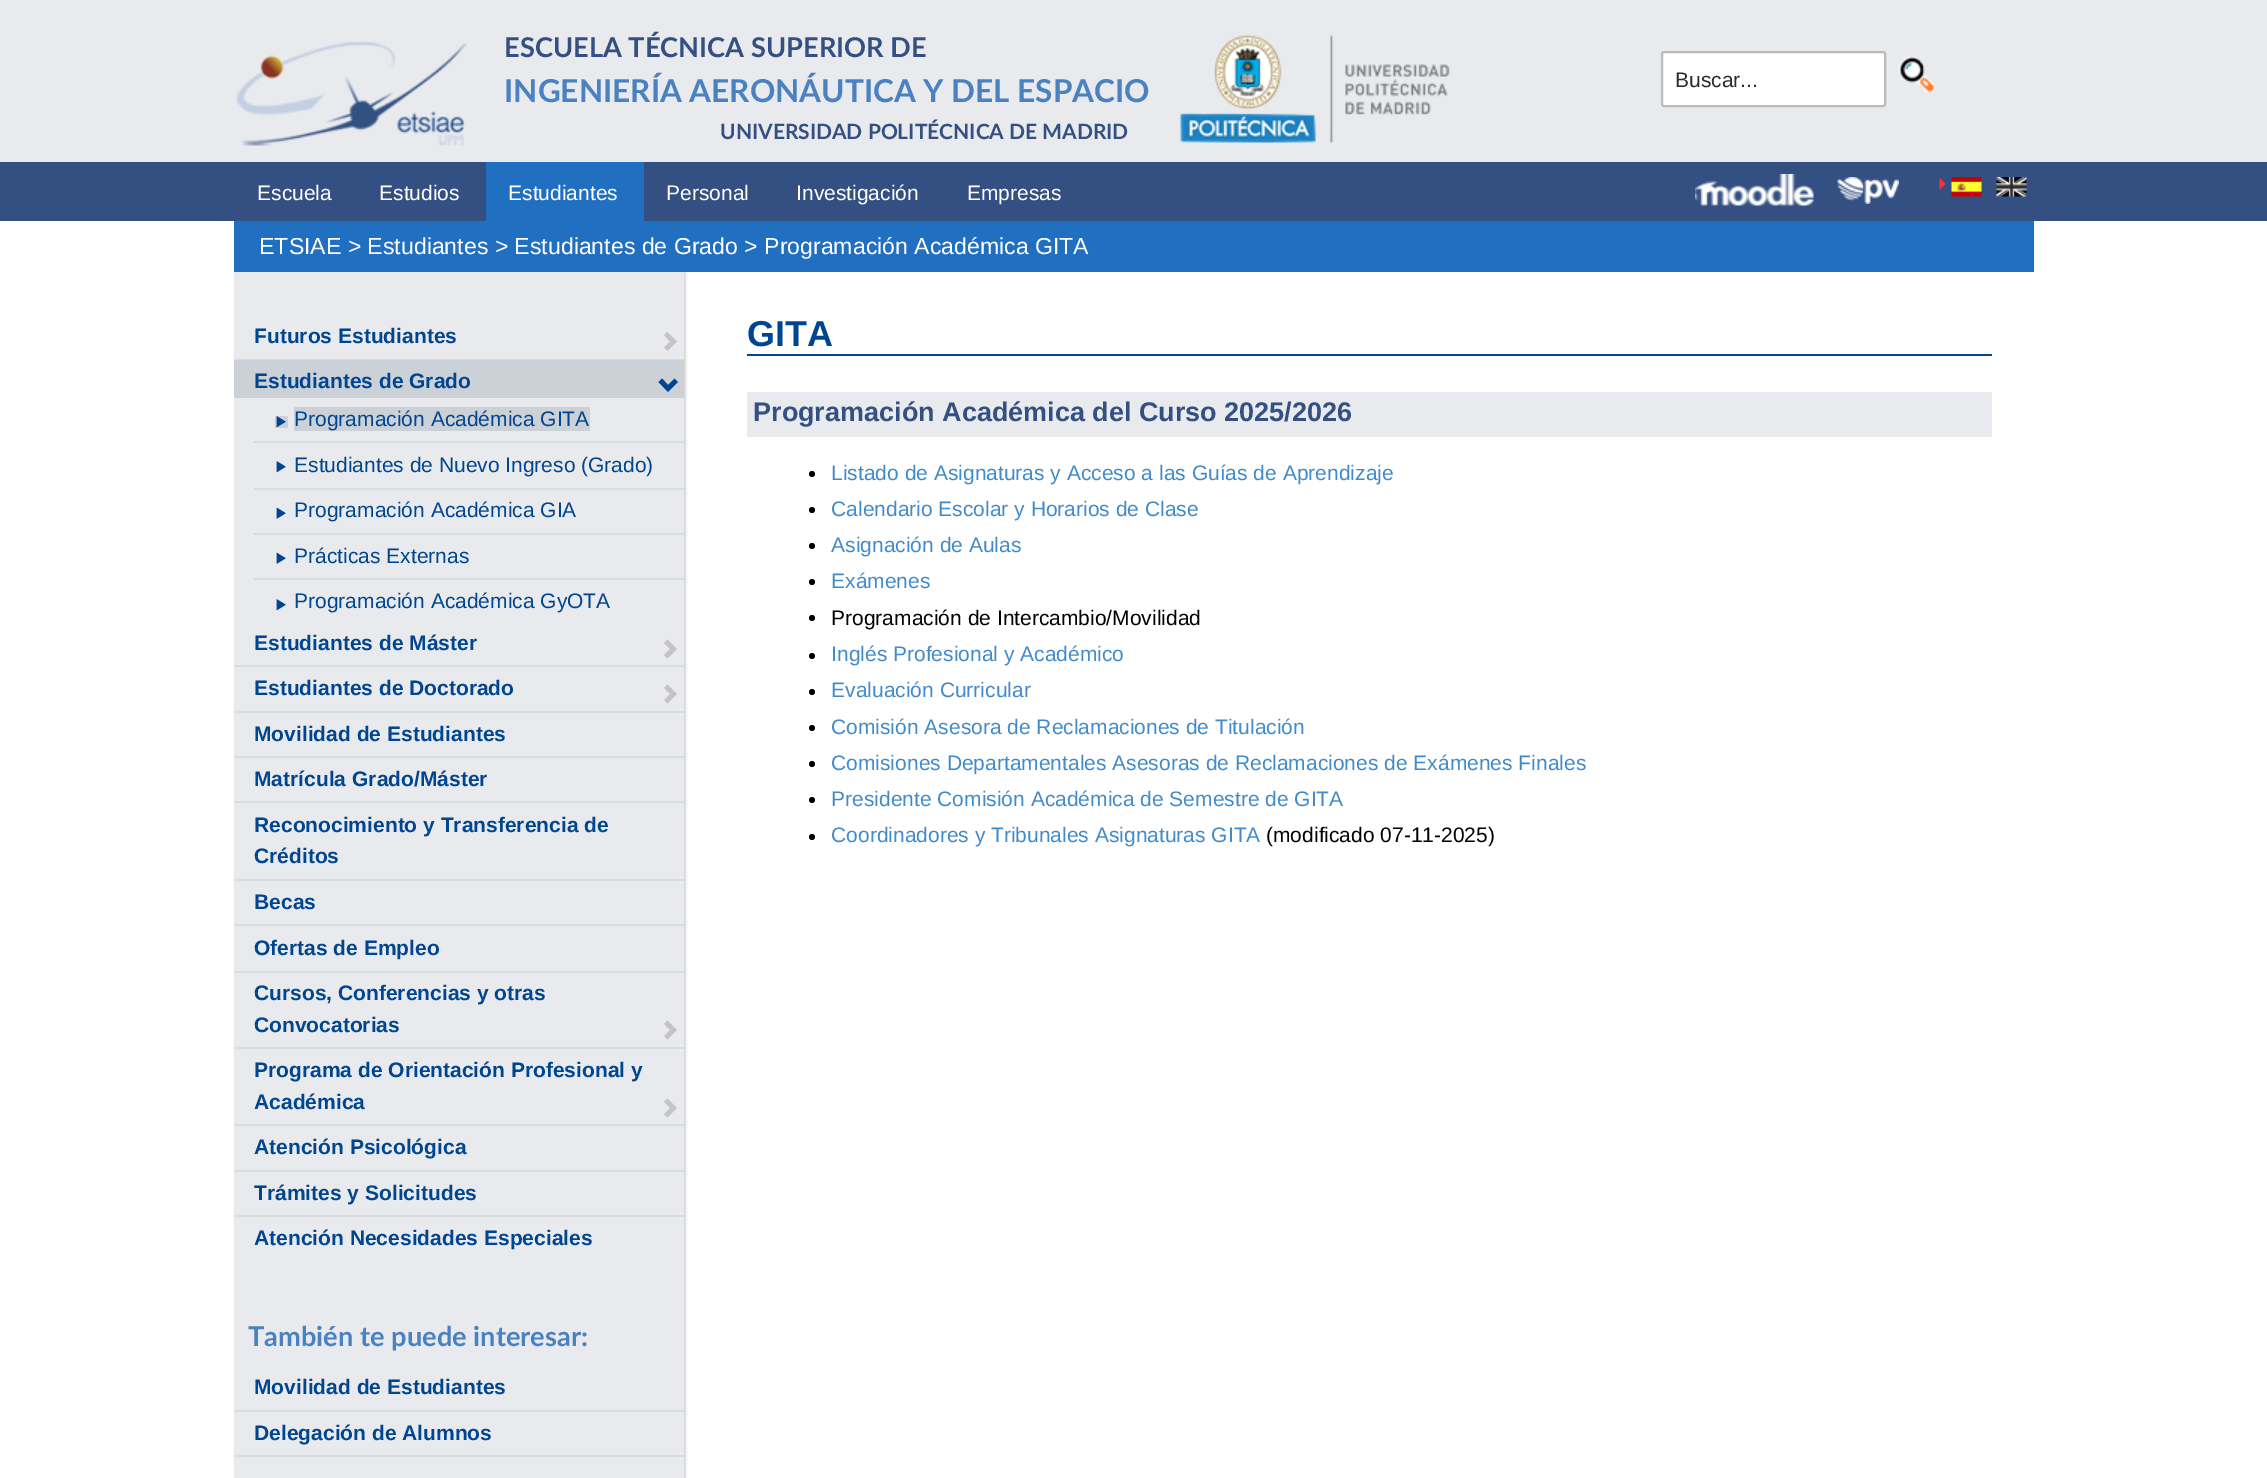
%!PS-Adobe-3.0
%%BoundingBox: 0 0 2267 1478
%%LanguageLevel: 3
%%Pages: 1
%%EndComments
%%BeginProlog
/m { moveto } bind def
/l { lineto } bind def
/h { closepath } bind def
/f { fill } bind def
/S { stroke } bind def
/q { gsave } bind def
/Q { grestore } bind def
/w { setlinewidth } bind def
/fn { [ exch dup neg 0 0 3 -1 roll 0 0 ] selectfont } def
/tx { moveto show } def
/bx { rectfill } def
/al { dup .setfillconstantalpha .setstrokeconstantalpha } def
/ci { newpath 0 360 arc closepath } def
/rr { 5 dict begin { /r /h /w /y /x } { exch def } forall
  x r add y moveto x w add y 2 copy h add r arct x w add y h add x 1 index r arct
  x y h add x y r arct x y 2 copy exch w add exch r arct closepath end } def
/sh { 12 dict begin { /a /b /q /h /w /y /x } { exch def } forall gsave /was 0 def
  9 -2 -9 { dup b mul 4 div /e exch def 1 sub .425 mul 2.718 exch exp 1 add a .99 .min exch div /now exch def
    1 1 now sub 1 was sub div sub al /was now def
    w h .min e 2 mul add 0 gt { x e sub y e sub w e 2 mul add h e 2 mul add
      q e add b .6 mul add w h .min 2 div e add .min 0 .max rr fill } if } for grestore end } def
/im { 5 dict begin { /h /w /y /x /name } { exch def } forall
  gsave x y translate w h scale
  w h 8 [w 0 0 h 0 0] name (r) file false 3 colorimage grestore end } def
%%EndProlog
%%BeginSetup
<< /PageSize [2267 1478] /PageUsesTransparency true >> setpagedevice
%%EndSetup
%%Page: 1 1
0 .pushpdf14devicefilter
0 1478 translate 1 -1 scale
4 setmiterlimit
1 setgray
0 0 2267 1478 bx
0.91 0.918 0.929 setrgbcolor
0 0 2267 162 bx
(image0.raw) 236 41 231 105 im
/Lato-Bold 27.25 fn
0.204 0.314 0.51 setrgbcolor
(ESCUELA TÉCNICA SUPERIOR DE) 504 57 tx
/Lato-Bold 31.5 fn
0.29 0.506 0.757 setrgbcolor
(INGENIERÍA AERONÁUTICA Y DEL ESPACIO) 504 102 tx
/Lato-Bold 21 fn
0.204 0.314 0.51 setrgbcolor
(UNIVERSIDAD POLITÉCNICA DE MADRID) 720 139 tx
(image1.raw) 1180 34 270 109 im
1 setgray
1662 52 223 54 2 rr q f Q
0.733 setgray
2 w
S
/LiberationSans-Regular 21 fn
0.169 setgray
(Buscar...) 1675 87 tx
(image2.raw) 1898 55 37 39 im
0.204 0.314 0.51 setrgbcolor
0 162 2267 59 bx
1 setgray
(Escuela) 257 200 tx
(Estudios) 379 200 tx
0.129 0.435 0.753 setrgbcolor
486 162 158 59 bx
1 setgray
(Estudiantes) 508 200 tx
(Personal) 666 200 tx
(Investigación) 796 200 tx
(Empresas) 967 200 tx
(image3.raw) 1695 174 119 32 im
(image4.raw) 1837 177 62 27 im
(image5.raw) 1939 178 7 12 im
(image6.raw) 1951 177 31 20 im
(image7.raw) 1996 177 31 20 im
0.129 0.435 0.753 setrgbcolor
234 221 1800 51 bx
/LiberationSans-Regular 23.1 fn
1 setgray
(ETSIAE > Estudiantes > Estudiantes de Grado > Programación Académica GITA) 259 254 tx
0.196 setgray
236 272 450 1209 0 1 0.2 sh
0.91 0.918 0.929 setrgbcolor
234 272 450 1206 bx
0.855 0.867 0.878 setrgbcolor
234 359 450 1 bx
/LiberationSans-Bold 21 fn
0 0.271 0.561 setrgbcolor
(Futuros Estudiantes) 254 343 tx
0.769 setgray
677 341.5 m 667.5 351 l 664 347.5 l 670 341.5 l 664 335 l 667.5 332 l h f
0.8 0.816 0.843 setrgbcolor
234 360 450 38 bx
0 0.271 0.561 setrgbcolor
(Estudiantes de Grado) 254 388 tx
678 382 m 668 392 l 658.5 382 l 662 378.5 l 668 385 l 674.5 378.5 l h f
0.855 0.867 0.878 setrgbcolor
254 441 430 2 bx
0.8 0.816 0.843 setrgbcolor
275 416 13 12 bx
294 407 296 24 bx
(image8.raw) 276 416 10 12 im
/LiberationSans-Regular 21 fn
0 0.271 0.561 setrgbcolor
(Programación Académica GITA) 294 426 tx
0.855 0.867 0.878 setrgbcolor
254 488 430 2 bx
(image9.raw) 276 461 10 12 im
0 0.271 0.561 setrgbcolor
(Estudiantes de Nuevo Ingreso \(Grado\)) 294 472 tx
0.855 0.867 0.878 setrgbcolor
254 533 430 2 bx
(image10.raw) 276 507 10 12 im
0 0.271 0.561 setrgbcolor
(Programación Académica GIA) 294 517 tx
0.855 0.867 0.878 setrgbcolor
254 578 430 2 bx
(image10.raw) 276 552 10 12 im
0 0.271 0.561 setrgbcolor
(Prácticas Externas) 294 563 tx
(image9.raw) 276 599 10 12 im
(Programación Académica GyOTA) 294 608 tx
0.855 0.867 0.878 setrgbcolor
234 665 450 2 bx
/LiberationSans-Bold 21 fn
0 0.271 0.561 setrgbcolor
(Estudiantes de Máster) 254 650 tx
0.769 setgray
677 649 m 667.5 658.5 l 664 655 l 670 649 l 664 643 l 667.5 639.5 l h f
0.855 0.867 0.878 setrgbcolor
234 711 450 2 bx
0 0.271 0.561 setrgbcolor
(Estudiantes de Doctorado) 254 695 tx
0.769 setgray
677 694 m 667.5 703.5 l 664 700 l 670 694 l 664 688 l 667.5 684.5 l h f
0.855 0.867 0.878 setrgbcolor
234 756 450 2 bx
0 0.271 0.561 setrgbcolor
(Movilidad de Estudiantes) 254 741 tx
0.855 0.867 0.878 setrgbcolor
234 801 450 2 bx
0 0.271 0.561 setrgbcolor
(Matrícula Grado/Máster) 254 786 tx
0.855 0.867 0.878 setrgbcolor
234 879 450 2 bx
0 0.271 0.561 setrgbcolor
(Reconocimiento y Transferencia de) 254 832 tx
(Créditos) 254 863 tx
0.855 0.867 0.878 setrgbcolor
234 924 450 2 bx
0 0.271 0.561 setrgbcolor
(Becas) 254 909 tx
0.855 0.867 0.878 setrgbcolor
234 971 450 2 bx
0 0.271 0.561 setrgbcolor
(Ofertas de Empleo) 254 955 tx
0.855 0.867 0.878 setrgbcolor
234 1047 450 2 bx
0 0.271 0.561 setrgbcolor
(Cursos, Conferencias y otras) 254 1000 tx
(Convocatorias) 254 1032 tx
0.769 setgray
677 1030 m 667.5 1039.5 l 664 1036 l 670 1030 l 664 1024 l 667.5 1020.5 l h f
0.855 0.867 0.878 setrgbcolor
234 1124 450 2 bx
0 0.271 0.561 setrgbcolor
(Programa de Orientación Profesional y) 254 1077 tx
(Académica) 254 1109 tx
0.769 setgray
677 1108 m 667.5 1117.5 l 664 1114 l 670 1108 l 664 1102 l 667.5 1098.5 l h f
0.855 0.867 0.878 setrgbcolor
234 1170 450 2 bx
0 0.271 0.561 setrgbcolor
(Atención Psicológica) 254 1154 tx
0.855 0.867 0.878 setrgbcolor
234 1215 450 2 bx
0 0.271 0.561 setrgbcolor
(Trámites y Solicitudes) 254 1200 tx
(Atención Necesidades Especiales) 254 1245 tx
/Lato-Bold 27.25 fn
0.29 0.506 0.757 setrgbcolor
(También te puede interesar:) 248 1346 tx
0.855 0.867 0.878 setrgbcolor
234 1410 450 2 bx
/LiberationSans-Bold 21 fn
0 0.271 0.561 setrgbcolor
(Movilidad de Estudiantes) 254 1394 tx
0.855 0.867 0.878 setrgbcolor
234 1455 450 2 bx
0 0.271 0.561 setrgbcolor
(Delegación de Alumnos) 254 1440 tx
747 354 1245 2 bx
/LiberationSans-Bold 36 fn
(GITA) 747 346 tx
0.91 0.918 0.929 setrgbcolor
747 392 1245 45 bx
/LiberationSans-Bold 27 fn
0.204 0.314 0.51 setrgbcolor
(Programación Académica del Curso 2025/2026) 753 421 tx
0 setgray
812 474 3 ci f
/LiberationSans-Regular 21 fn
0.259 0.545 0.792 setrgbcolor
(Listado de Asignaturas y Acceso a las Guías de Aprendizaje) 831 480 tx
0 setgray
812 510 3 ci f
0.259 0.545 0.792 setrgbcolor
(Calendario Escolar y Horarios de Clase) 831 516 tx
0 setgray
812 546 3 ci f
0.259 0.545 0.792 setrgbcolor
(Asignación de Aulas) 831 552 tx
0 setgray
812 582 3 ci f
0.259 0.545 0.792 setrgbcolor
(Exámenes) 831 588 tx
0 setgray
812 618 3 ci f
(Programación de Intercambio/Movilidad) 831 625 tx
812 656 3 ci f
0.259 0.545 0.792 setrgbcolor
(Inglés Profesional y Académico) 831 661 tx
0 setgray
812 692 3 ci f
0.259 0.545 0.792 setrgbcolor
(Evaluación Curricular) 831 697 tx
0 setgray
812 728 3 ci f
0.259 0.545 0.792 setrgbcolor
(Comisión Asesora de Reclamaciones de Titulación) 831 734 tx
0 setgray
812 764 3 ci f
0.259 0.545 0.792 setrgbcolor
(Comisiones Departamentales Asesoras de Reclamaciones de Exámenes Finales) 831 770 tx
0 setgray
812 800 3 ci f
0.259 0.545 0.792 setrgbcolor
(Presidente Comisión Académica de Semestre de GITA) 831 806 tx
0 setgray
812 837 3 ci f
0.259 0.545 0.792 setrgbcolor
(Coordinadores y Tribunales Asignaturas GITA) 831 842 tx
0 setgray
(\(modificado 07-11-2025\)) 1266 842 tx
.poppdf14devicefilter showpage
%%EOF
